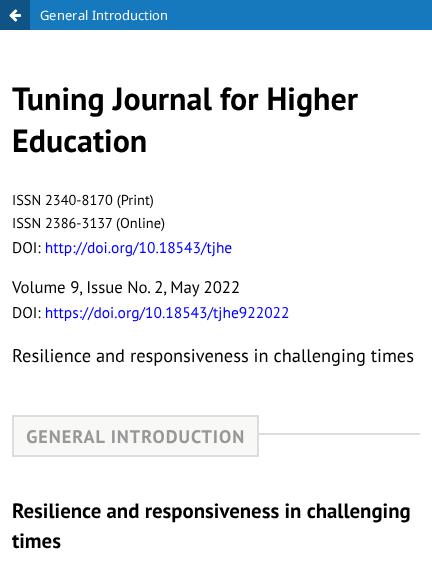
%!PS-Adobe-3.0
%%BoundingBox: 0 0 432 563
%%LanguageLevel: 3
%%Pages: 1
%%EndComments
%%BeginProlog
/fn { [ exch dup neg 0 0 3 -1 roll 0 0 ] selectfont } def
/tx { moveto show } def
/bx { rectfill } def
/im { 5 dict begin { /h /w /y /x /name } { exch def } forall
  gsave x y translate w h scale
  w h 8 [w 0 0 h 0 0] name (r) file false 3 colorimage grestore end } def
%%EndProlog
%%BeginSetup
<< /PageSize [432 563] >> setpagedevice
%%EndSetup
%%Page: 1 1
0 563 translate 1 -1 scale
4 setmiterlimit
1 setgray
0 0 432 563 bx
0.086 0.475 0.741 setrgbcolor
30 0 402 30 bx
0.059 0.329 0.518 setrgbcolor
0 0 30 30 bx
(image0.raw) 9 9 12 13 im
/NotoSans-Regular 13 fn
1 setgray
(General Introduction) 40 20 tx
(image1.raw) 12 87 408 462 im
showpage
%%EOF
